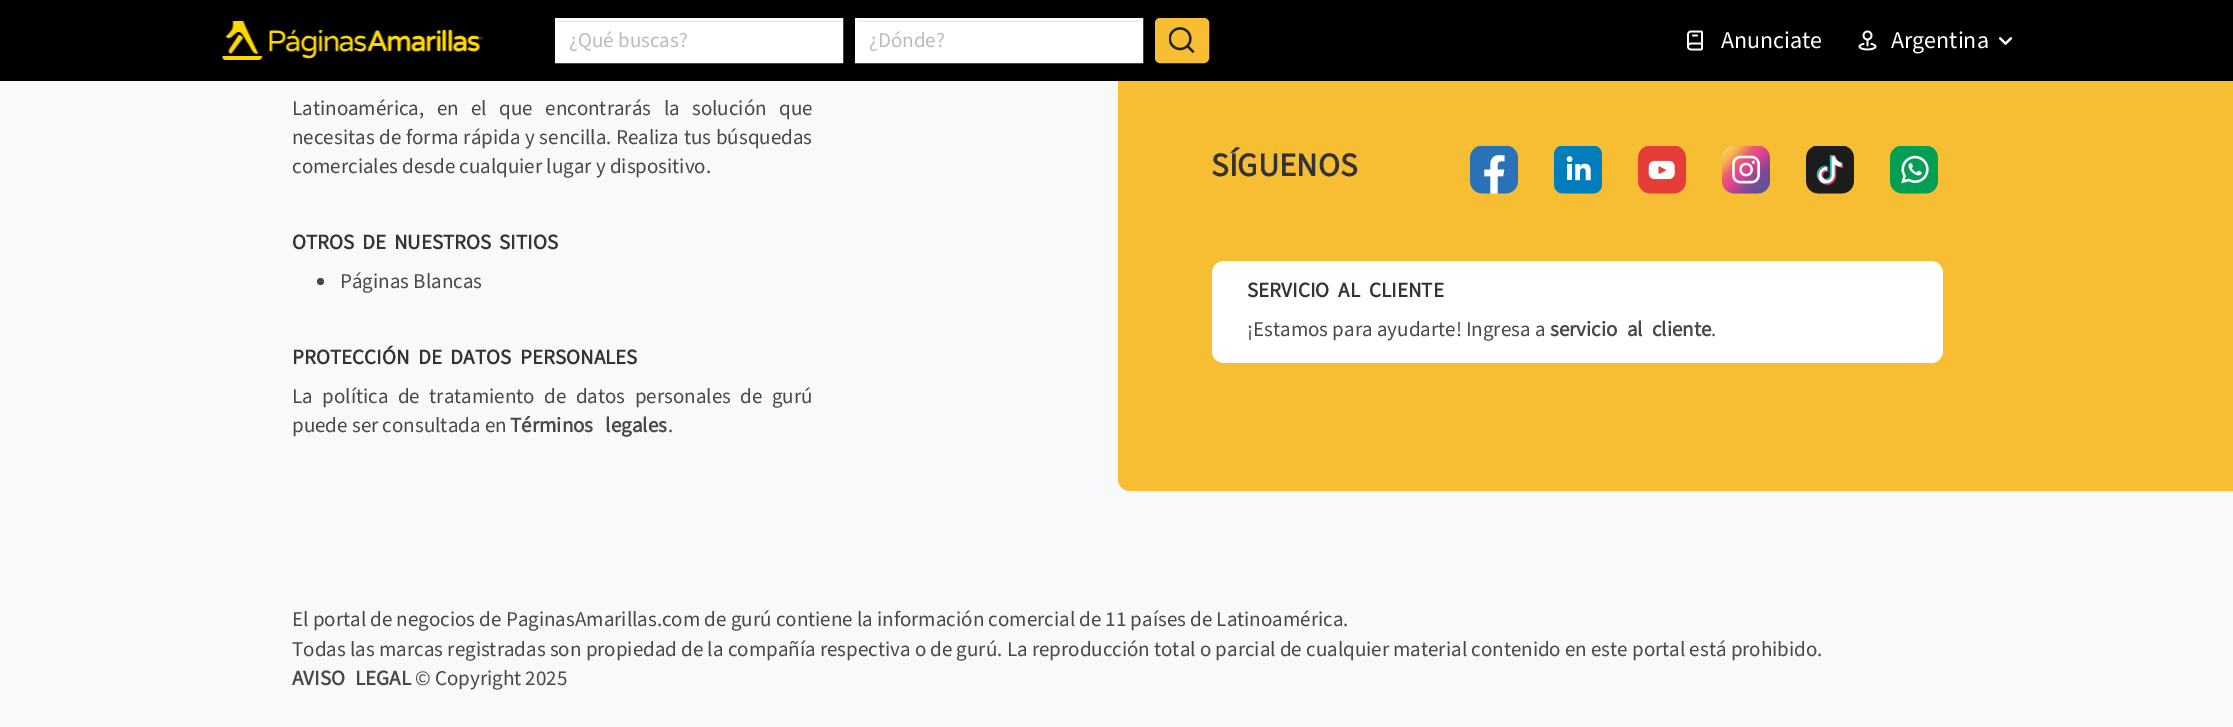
%!PS-Adobe-3.0
%%BoundingBox: 0 0 2233 727
%%LanguageLevel: 3
%%Pages: 1
%%EndComments
%%BeginProlog
/m { moveto } bind def
/l { lineto } bind def
/c { curveto } bind def
/h { closepath } bind def
/f { fill } bind def
/S { stroke } bind def
/q { gsave } bind def
/Q { grestore } bind def
/w { setlinewidth } bind def
/fn { [ exch dup neg 0 0 3 -1 roll 0 0 ] selectfont } def
/tx { moveto show } def
/bx { rectfill } def
/ci { newpath 0 360 arc closepath } def
/rr { 5 dict begin { /r /h /w /y /x } { exch def } forall
  x r add y moveto x w add y 2 copy h add r arct x w add y h add x 1 index r arct
  x y h add x y r arct x y 2 copy exch w add exch r arct closepath end } def
/im { 5 dict begin { /h /w /y /x /name } { exch def } forall
  gsave x y translate w h scale
  w h 8 [w 0 0 h 0 0] name (r) file false 3 colorimage grestore end } def
%%EndProlog
%%BeginSetup
<< /PageSize [2233 727] >> setpagedevice
%%EndSetup
%%Page: 1 1
0 727 translate 1 -1 scale
4 setmiterlimit
0.973 0.976 0.98 setrgbcolor
0 0 2233 727 bx
0.969 0.745 0.2 setrgbcolor
1130 5 m 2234 5 l 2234 491 l 1130 491 l 1123.5 491 1118 485.5 1118 479 c 1118 17 l 1118 10.5 1123.5 5 1130 5 c h f
0 setgray
0 0 2233 81 bx
(image0.raw) 222 21 262 39 im
1 setgray
557 22 284 39 bx
0.925 setgray
557 20 285 2 bx
1 setgray
2 w
556 19 286 43 rectstroke
/SourceSans3-Regular 21 fn
0.737 setgray
(¿Qué buscas?) 569 47 tx
1 setgray
857 22 284 39 bx
0.925 setgray
857 20 285 2 bx
1 setgray
856 19 286 43 rectstroke
0.737 setgray
(¿Dónde?) 869 47 tx
0.969 0.745 0.2 setrgbcolor
1156 19 52 43 4 rr q f Q
S
(image1.raw) 1169 27 26 27 im
(image2.raw) 1687 30 16 21 im
/SourceSans3-Regular 24 fn
1 setgray
(Anunciate) 1721 48 tx
(image3.raw) 1858 30 19 21 im
(Argentina) 1891 48 tx
(image4.raw) 1999 37 14 8 im
/SourceSans3-Regular 21 fn
0.282 setgray
292 115 m 8.25 0 32 (Latinoamérica, en el que encontrarás la solución que) widthshow
292 144 m 0.5 0 32 (necesitas de forma rápida y sencilla. Realiza tus búsquedas) widthshow
(comerciales desde cualquier lugar y dispositivo.) 292 173 tx
/SourceSans3-Bold 21 fn
0.2 setgray
292 249 m 3.5 0 32 (OTROS DE NUESTROS SITIOS) widthshow
0.282 setgray
320.5 281.5 3.5 ci f
/SourceSans3-Regular 21 fn
(Páginas Blancas) 340 288 tx
/SourceSans3-Bold 21 fn
0.2 setgray
292 364 m 4.5 0 32 (PROTECCIÓN DE DATOS PERSONALES) widthshow
/SourceSans3-Regular 21 fn
0.282 setgray
292 403 m 5.25 0 32 (La política de tratamiento de datos personales de gurú) widthshow
(puede ser consultada en) 292 432 tx
/SourceSans3-Bold 21 fn
510 432 m 8 0 32 (Términos legales) widthshow
/SourceSans3-Regular 21 fn
(.) 668 432 tx
/SourceSans3-Bold 33 fn
0.2 setgray
(SÍGUENOS) 1211 176 tx
(image5.raw) 1470 146 48 48 im
(image6.raw) 1554 146 48 48 im
(image7.raw) 1638 146 48 48 im
(image8.raw) 1722 146 48 48 im
(image9.raw) 1806 146 48 48 im
(image10.raw) 1890 146 48 48 im
1 setgray
1212 261 731 102 12 rr f
/SourceSans3-Bold 21 fn
0.2 setgray
1247 297 m 5 0 32 (SERVICIO AL CLIENTE) widthshow
/SourceSans3-Regular 21 fn
0.282 setgray
(¡Estamos para ayudarte! Ingresa a) 1247 336 tx
/SourceSans3-Bold 21 fn
1550 336 m 5 0 32 (servicio al cliente) widthshow
/SourceSans3-Regular 21 fn
(.) 1711 336 tx
(El portal de negocios de PaginasAmarillas.com de gurú contiene la información comercial de 11 países de Latinoamérica.) 292 626 tx
(Todas las marcas registradas son propiedad de la compañía respectiva o de gurú. La reproducción total o parcial de cualquier material contenido en este portal está prohibido.) 292 656 tx
/SourceSans3-Bold 21 fn
292 685 m 6 0 32 (AVISO LEGAL) widthshow
/SourceSans3-Regular 21 fn
(© Copyright 2025) 415 685 tx
showpage
%%EOF
